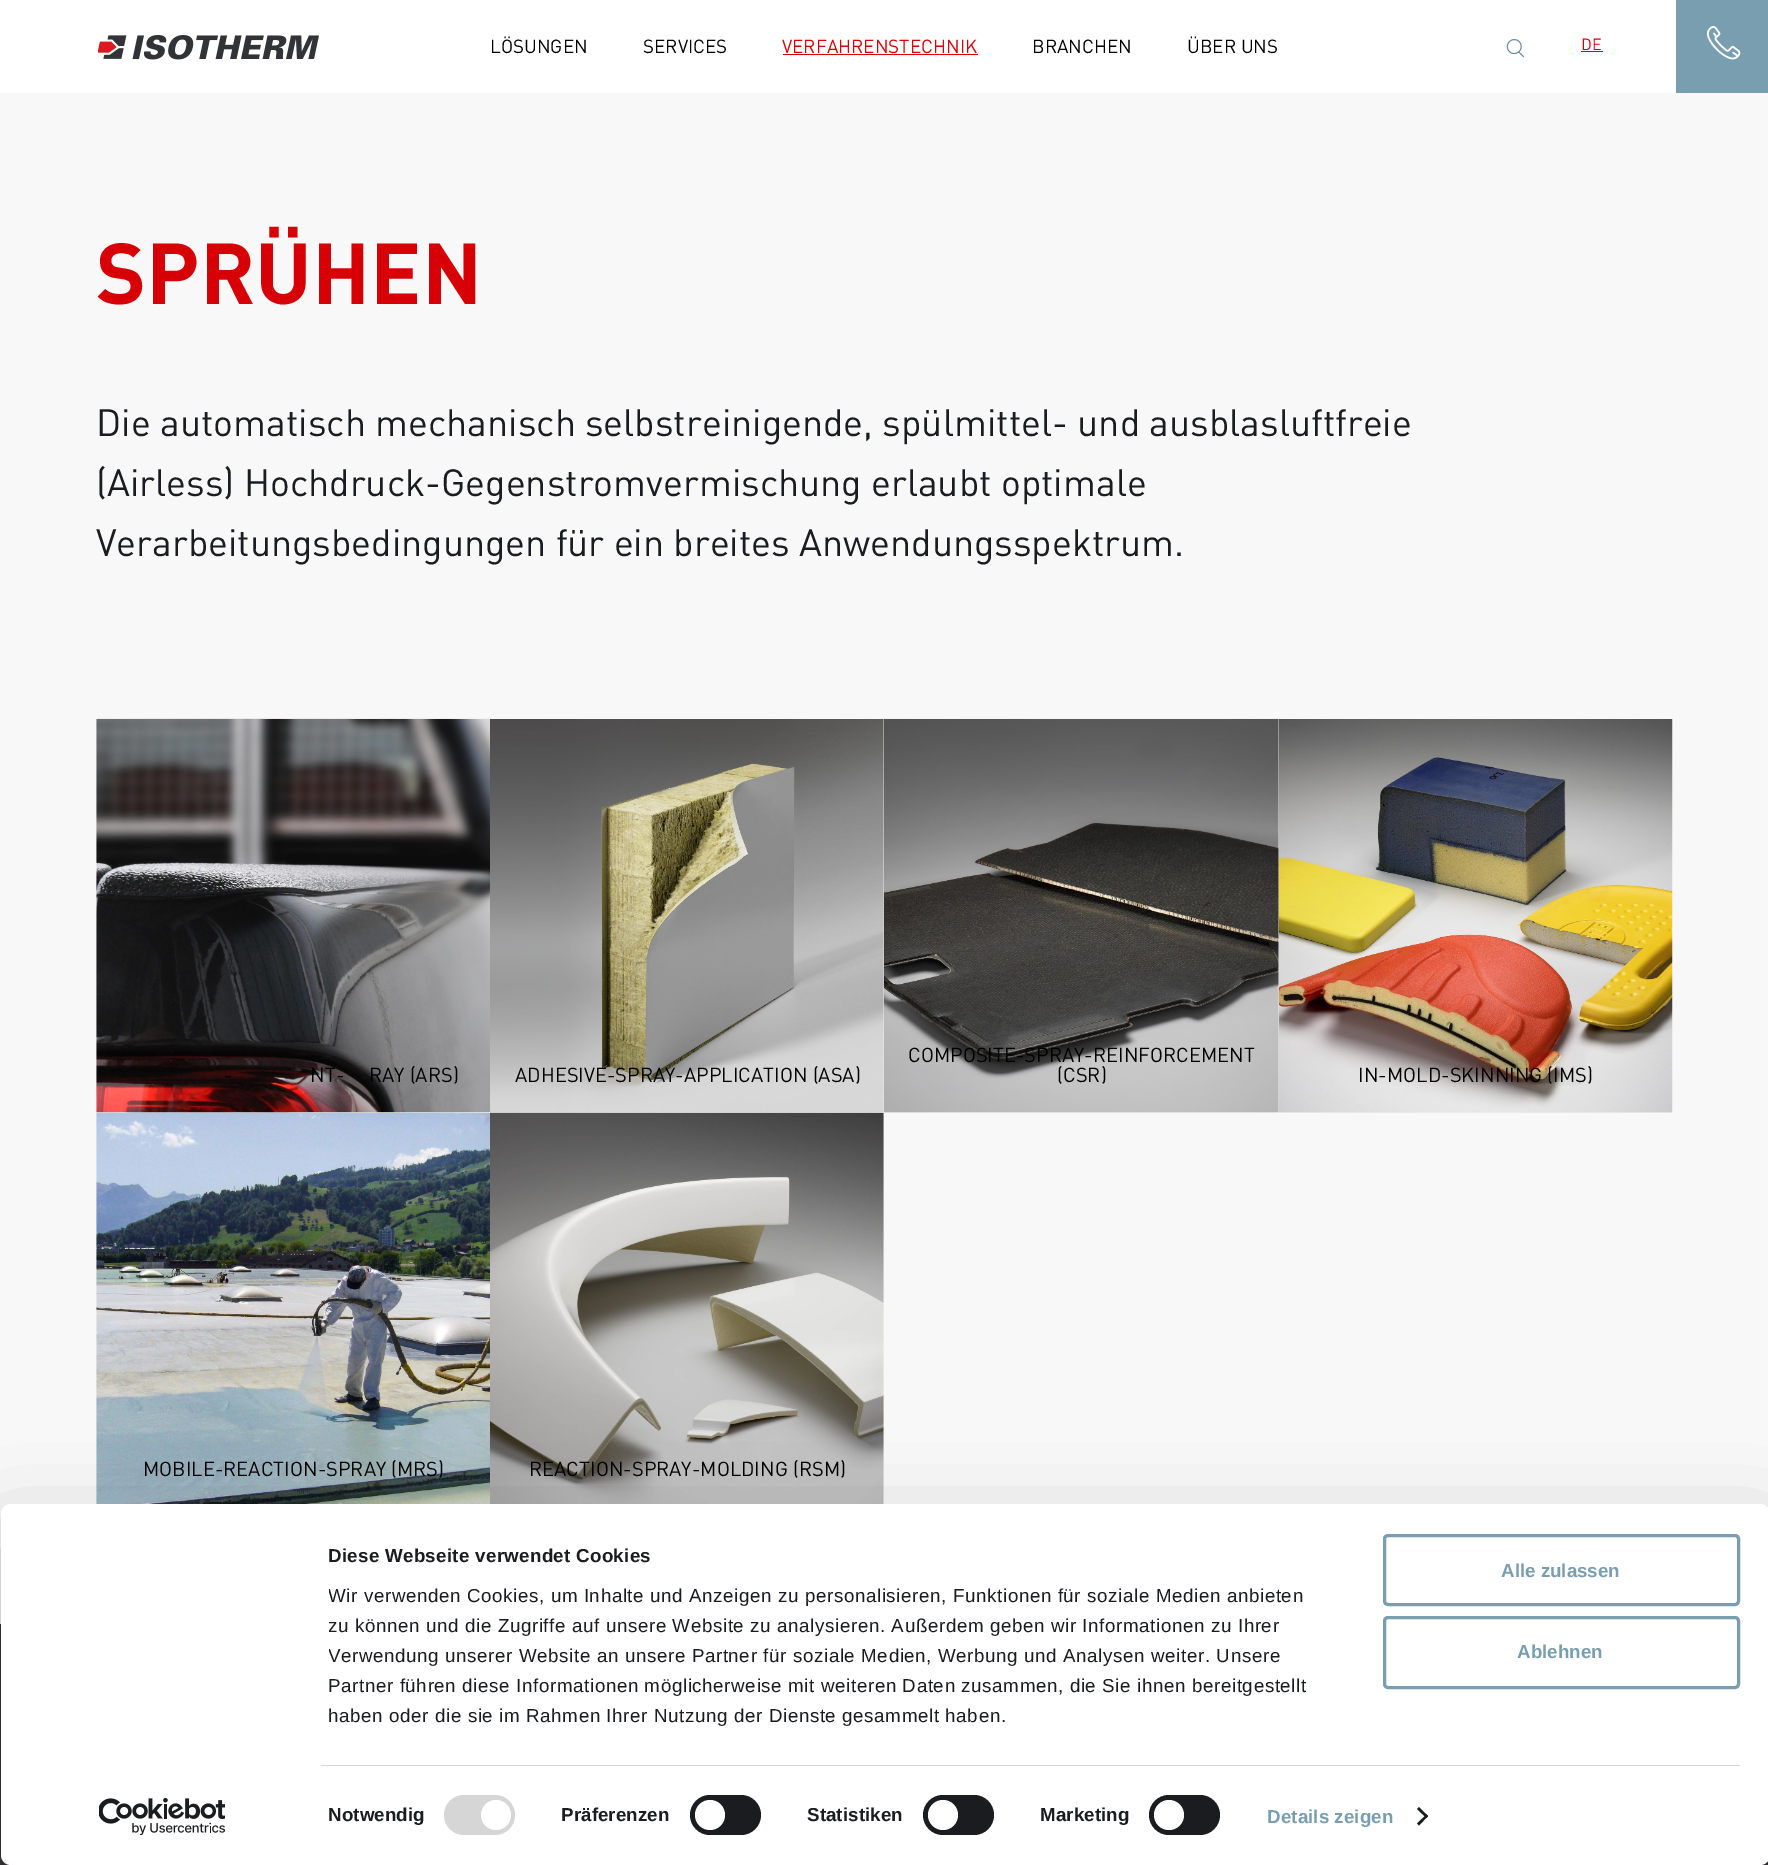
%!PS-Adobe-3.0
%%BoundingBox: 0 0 1768 1865
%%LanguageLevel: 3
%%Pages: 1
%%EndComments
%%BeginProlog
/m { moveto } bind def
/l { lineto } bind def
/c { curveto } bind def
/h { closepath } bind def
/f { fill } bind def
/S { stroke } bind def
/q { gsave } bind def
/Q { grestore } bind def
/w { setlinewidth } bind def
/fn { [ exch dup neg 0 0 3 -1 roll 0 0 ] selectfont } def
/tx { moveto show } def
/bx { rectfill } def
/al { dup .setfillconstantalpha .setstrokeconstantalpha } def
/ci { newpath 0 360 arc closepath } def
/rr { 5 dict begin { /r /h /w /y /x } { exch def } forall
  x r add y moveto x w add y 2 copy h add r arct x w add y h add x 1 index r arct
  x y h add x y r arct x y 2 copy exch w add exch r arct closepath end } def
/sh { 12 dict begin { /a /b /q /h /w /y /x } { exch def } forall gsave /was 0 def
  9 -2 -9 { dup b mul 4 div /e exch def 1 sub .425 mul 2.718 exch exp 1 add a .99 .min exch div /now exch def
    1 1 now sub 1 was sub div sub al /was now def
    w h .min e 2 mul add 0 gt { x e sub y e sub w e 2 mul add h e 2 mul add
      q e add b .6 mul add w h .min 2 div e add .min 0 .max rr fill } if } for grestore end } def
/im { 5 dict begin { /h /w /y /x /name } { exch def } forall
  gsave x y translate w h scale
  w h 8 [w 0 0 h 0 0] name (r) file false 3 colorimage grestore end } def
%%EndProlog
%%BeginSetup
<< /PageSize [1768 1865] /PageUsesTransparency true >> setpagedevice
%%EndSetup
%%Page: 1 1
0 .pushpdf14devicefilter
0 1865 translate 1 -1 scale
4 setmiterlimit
1 setgray
0 0 1768 1865 bx
(image0.raw) 98 35 221 25 im
/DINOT-Regular 18.75 fn
0 setgray
(LÖSUNGEN) 490 53 tx
(SERVICES) 643 53 tx
0.843 0 0.024 setrgbcolor
(VERFAHRENSTECHNIK) 782 53 tx
783 54 195 1 bx
0 setgray
(BRANCHEN) 1032 53 tx
(ÜBER UNS) 1187 53 tx
(image1.raw) 1506 39 18 19 im
/DINOT-Regular 16 fn
0.843 0 0.024 setrgbcolor
(DE) 1581 50 tx
1581 51 22 1 bx
0.471 0.62 0.69 setrgbcolor
1676 0 92 93 bx
(image2.raw) 1706 26 35 34 im
0.973 0.973 0.976 setrgbcolor
0 93 1768 1531 bx
/DINOT-Bold 85 fn
0.843 0 0.024 setrgbcolor
(SPRÜHEN) 96 304 tx
/DINOT-Regular 37.5 fn
0.106 0.11 0.125 setrgbcolor
(Die automatisch mechanisch selbstreinigende, spülmittel- und ausblasluftfreie) 96 436 tx
(\(Airless\) Hochdruck-Gegenstromvermischung erlaubt optimale) 96 496 tx
(Verarbeitungsbedingungen für ein breites Anwendungsspektrum.) 96 556 tx
(image3.raw) 96 718 394 395 im
/DINOT-Regular 20 fn
0 setgray
(-) 224 1082 tx
(NT-) 310 1082 tx
(RAY \(ARS\)) 369 1082 tx
(image4.raw) 490 719 394 394 im
(ADHESIVE-SPRAY-APPLICATION \(ASA\)) 515 1082 tx
(image5.raw) 883 718 396 395 im
(COMPOSITE-SPRAY-REINFORCEMENT) 908 1062 tx
(\(CSR\)) 1057 1082 tx
(image6.raw) 1278 719 395 394 im
(IN-MOLD-SKINNING \(IMS\)) 1358 1082 tx
(image7.raw) 96 1112 394 392 im
(MOBILE-REACTION-SPRAY \(MRS\)) 143 1476 tx
(image8.raw) 490 1112 394 392 im
(REACTION-SPRAY-MOLDING \(RSM\)) 529 1476 tx
0.216 0.208 0.22 setrgbcolor
0 1624 1768 241 bx
q
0 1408 m 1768 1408 l 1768 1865 l 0 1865 l h 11 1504 m 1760 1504 l 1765.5 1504 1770 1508.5 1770 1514 c 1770 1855 l 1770 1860.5 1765.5 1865 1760 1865 c 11 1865 l 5.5 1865 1 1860.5 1 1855 c 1 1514 l 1 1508.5 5.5 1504 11 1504 c h eoclip newpath
0 setgray
1 1541 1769 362 10 44 0.3 sh
Q
1 setgray
1 1504 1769 361 10 rr f
q
329 1541 1017 189 rectclip
/LiberationSans-Bold 18.75 fn
0.106 0.11 0.125 setrgbcolor
328 1562 m 0.3 0 (Diese Webseite verwendet Cookies) ashow
/LiberationSans-Regular 18.75 fn
328 1602 m 0.62 0 (Wir verwenden Cookies, um Inhalte und Anzeigen zu personalisieren, Funktionen für soziale Medien anbieten) ashow
328 1632 m 0.62 0 (zu können und die Zugriffe auf unsere Website zu analysieren. Außerdem geben wir Informationen zu Ihrer) ashow
328 1662 m 0.62 0 (Verwendung unserer Website an unsere Partner für soziale Medien, Werbung und Analysen weiter. Unsere) ashow
Q
/LiberationSans-Regular 18.75 fn
0.106 0.11 0.125 setrgbcolor
328 1692 m 0.62 0 (Partner führen diese Informationen möglicherweise mit weiteren Daten zusammen, die Sie ihnen bereitgestellt) ashow
328 1722 m 0.62 0 (haben oder die sie im Rahmen Ihrer Nutzung der Dienste gesammelt haben.) ashow
0.839 setgray
321 1765 1419 1 bx
/LiberationSans-Bold 18.75 fn
0.106 0.11 0.125 setrgbcolor
328 1821 m 0.1 0 (Notwendig) ashow
0.839 setgray
444 1795 71 40 20 rr f
1 setgray
496 1815 15 ci f
0.106 0.11 0.125 setrgbcolor
561 1821 m 0.1 0 (Präferenzen) ashow
690 1795 71 40 20 rr f
1 setgray
710 1815 15 ci f
0.106 0.11 0.125 setrgbcolor
807 1821 m 0.1 0 (Statistiken) ashow
923 1795 71 40 20 rr f
1 setgray
943 1815 15 ci f
0.106 0.11 0.125 setrgbcolor
1040 1821 m 0.1 0 (Marketing) ashow
1149 1795 71 40 20 rr f
1 setgray
1169 1815 15 ci f
0.471 0.62 0.69 setrgbcolor
1267 1823 m 0.1 0 (Details zeigen) ashow
0.106 0.11 0.125 setrgbcolor
1419 1807 m 1428 1816 l 1426.5 1818 l 1417 1809 l h f
1426.5 1814.5 m 1428 1816 l 1419 1825.5 l 1417 1823.5 l h f
0.471 0.62 0.69 setrgbcolor
3 w
1384.5 1535.5 354 69 3.5 rr S
(Alle zulassen) 1501 1577 tx
1384.5 1617.5 354 70 3.5 rr S
(Ablehnen) 1517 1658 tx
(image9.raw) 99 1798 126 37 im
.poppdf14devicefilter showpage
%%EOF
